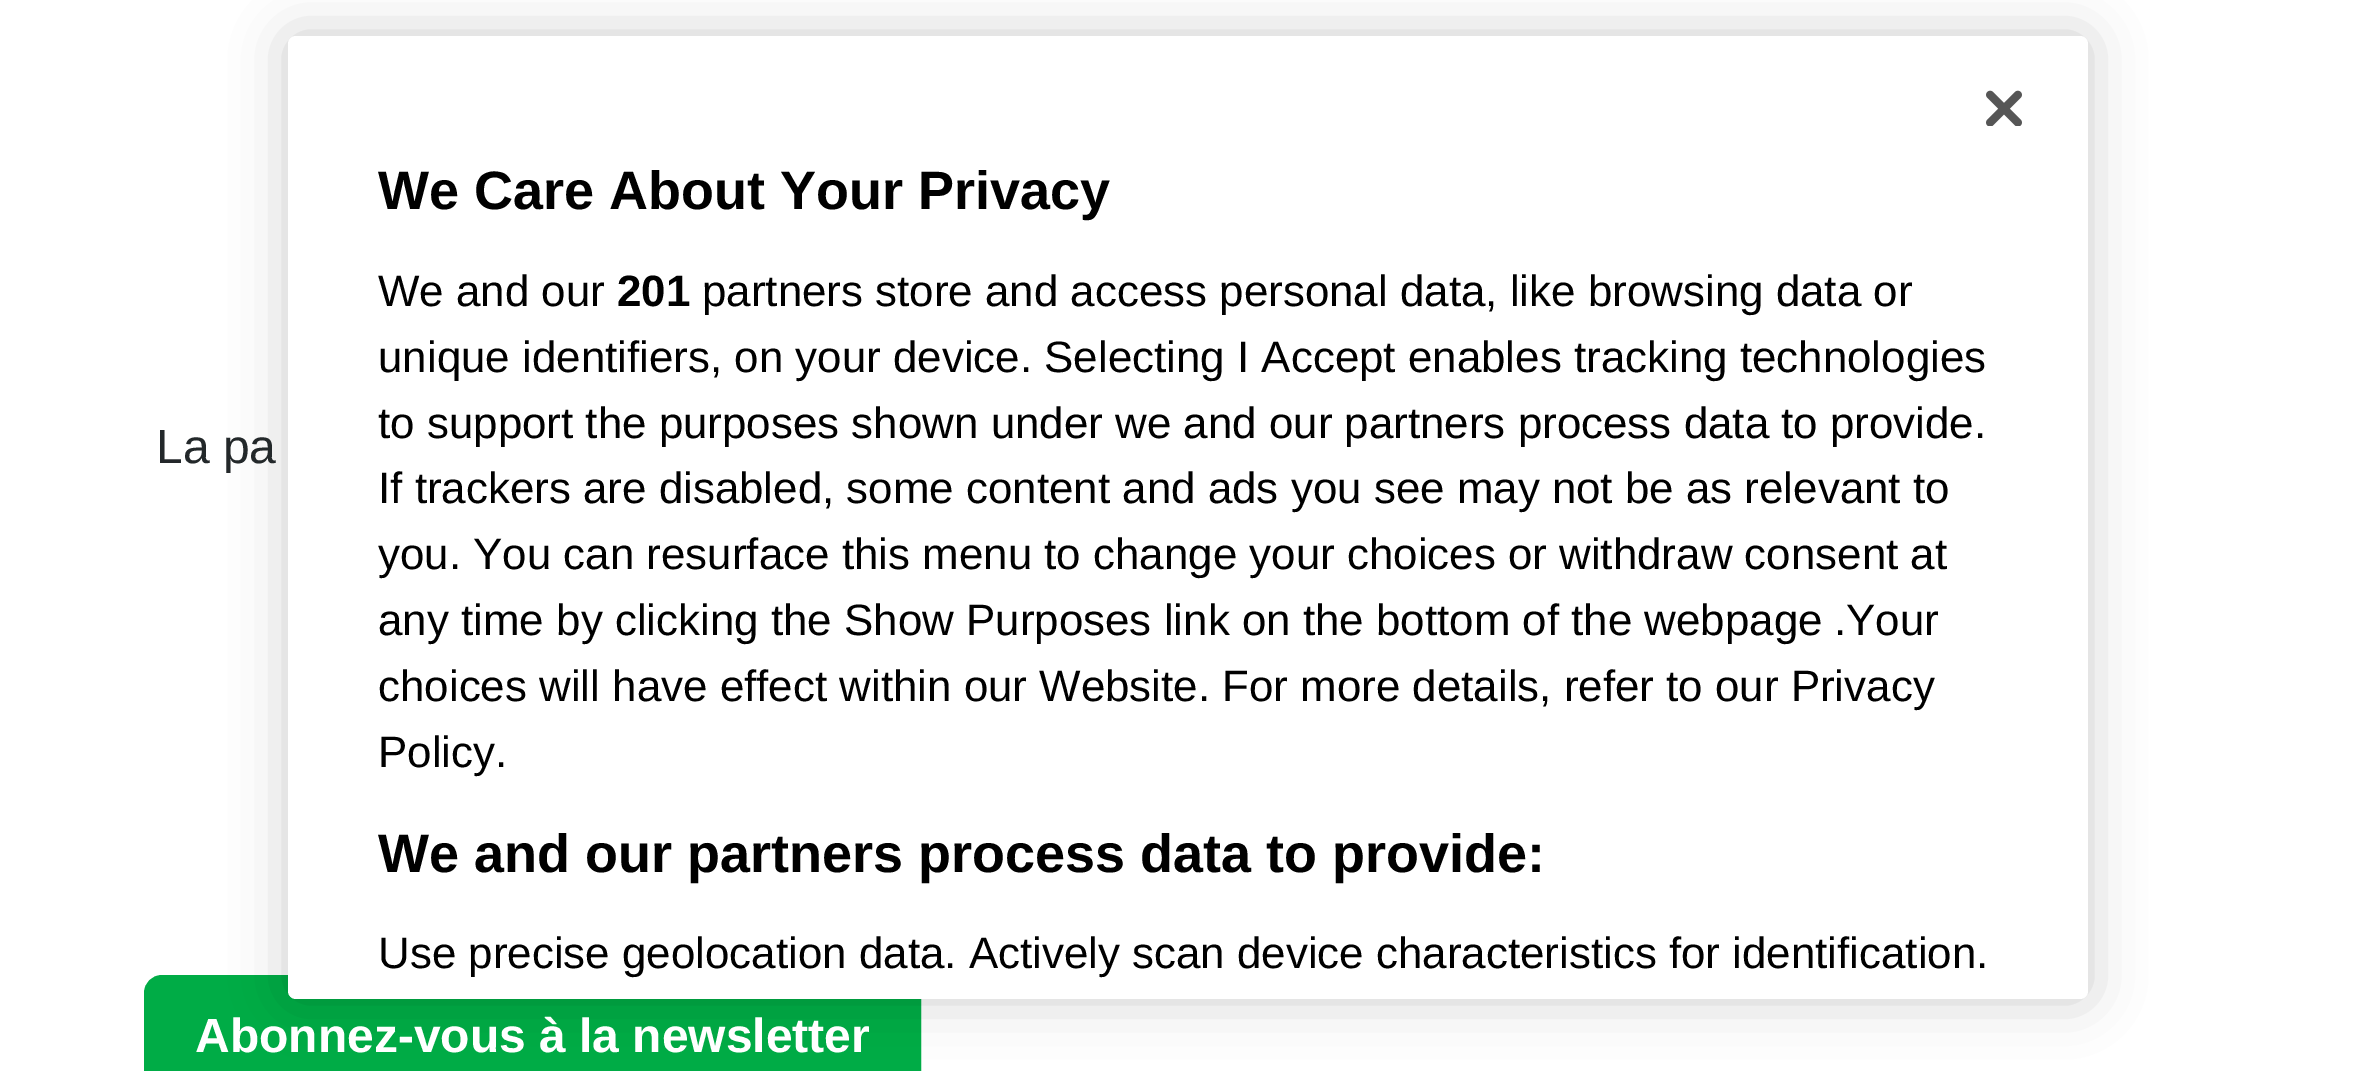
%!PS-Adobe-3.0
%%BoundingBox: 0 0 2375 1071
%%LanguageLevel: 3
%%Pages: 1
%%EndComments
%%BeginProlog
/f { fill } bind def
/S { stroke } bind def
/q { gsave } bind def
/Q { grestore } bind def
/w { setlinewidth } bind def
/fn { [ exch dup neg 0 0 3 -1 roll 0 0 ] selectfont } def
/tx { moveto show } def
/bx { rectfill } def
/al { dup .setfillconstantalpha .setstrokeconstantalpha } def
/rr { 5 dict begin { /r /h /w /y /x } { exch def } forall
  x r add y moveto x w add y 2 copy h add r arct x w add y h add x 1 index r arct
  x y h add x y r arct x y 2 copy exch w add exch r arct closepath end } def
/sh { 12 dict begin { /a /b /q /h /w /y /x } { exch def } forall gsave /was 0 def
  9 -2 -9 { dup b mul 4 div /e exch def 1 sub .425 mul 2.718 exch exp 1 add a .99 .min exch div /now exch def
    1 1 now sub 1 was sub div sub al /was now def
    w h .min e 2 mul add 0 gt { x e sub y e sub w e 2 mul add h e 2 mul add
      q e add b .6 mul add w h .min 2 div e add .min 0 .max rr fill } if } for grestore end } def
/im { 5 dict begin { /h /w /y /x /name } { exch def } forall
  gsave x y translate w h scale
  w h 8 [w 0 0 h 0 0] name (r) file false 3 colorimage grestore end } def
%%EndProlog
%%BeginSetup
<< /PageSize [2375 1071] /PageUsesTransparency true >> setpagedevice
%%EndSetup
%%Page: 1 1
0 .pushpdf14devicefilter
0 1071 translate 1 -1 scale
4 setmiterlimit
1 setgray
0 0 2375 1071 bx
0 0.675 0.275 setrgbcolor
145.5 976.5 774 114 16.5 rr q f Q
3 w
S
0 setgray
288 36 1800 963 8 27 0.2 sh
1 setgray
288 36 1800 963 8 rr f
(image0.raw) 1986 90 36 36 im
/LiberationSans-Bold 54 fn
0 setgray
(We Care About Your Privacy) 378 209 tx
/LiberationSans-Regular 43.9 fn
(We and our) 378 306 tx
/LiberationSans-Bold 43.9 fn
(201) 617 306 tx
/LiberationSans-Regular 43.9 fn
(partners store and access personal data, like browsing data or) 702 306 tx
(unique identifiers, on your device. Selecting I Accept enables tracking technologies) 378 372 tx
(to support the purposes shown under we and our partners process data to provide.) 378 438 tx
(If trackers are disabled, some content and ads you see may not be as relevant to) 378 503 tx
(you. You can resurface this menu to change your choices or withdraw consent at) 378 569 tx
(any time by clicking the Show Purposes link on the bottom of the webpage) 378 635 tx
(.Your) 1834 635 tx
(choices will have effect within our Website. For more details, refer to our Privacy) 378 701 tx
(Policy.) 378 767 tx
/LiberationSans-Bold 54 fn
(We and our partners process data to provide:) 378 872 tx
/LiberationSans-Regular 43.9 fn
(Use precise geolocation data. Actively scan device characteristics for identification.) 378 968 tx
/LiberationSans-Regular 48 fn
0.137 0.157 0.165 setrgbcolor
(La pa) 156 463 tx
/LiberationSans-Bold 48 fn
1 setgray
(Abonnez-vous à la newsletter) 195 1052 tx
.poppdf14devicefilter showpage
%%EOF
